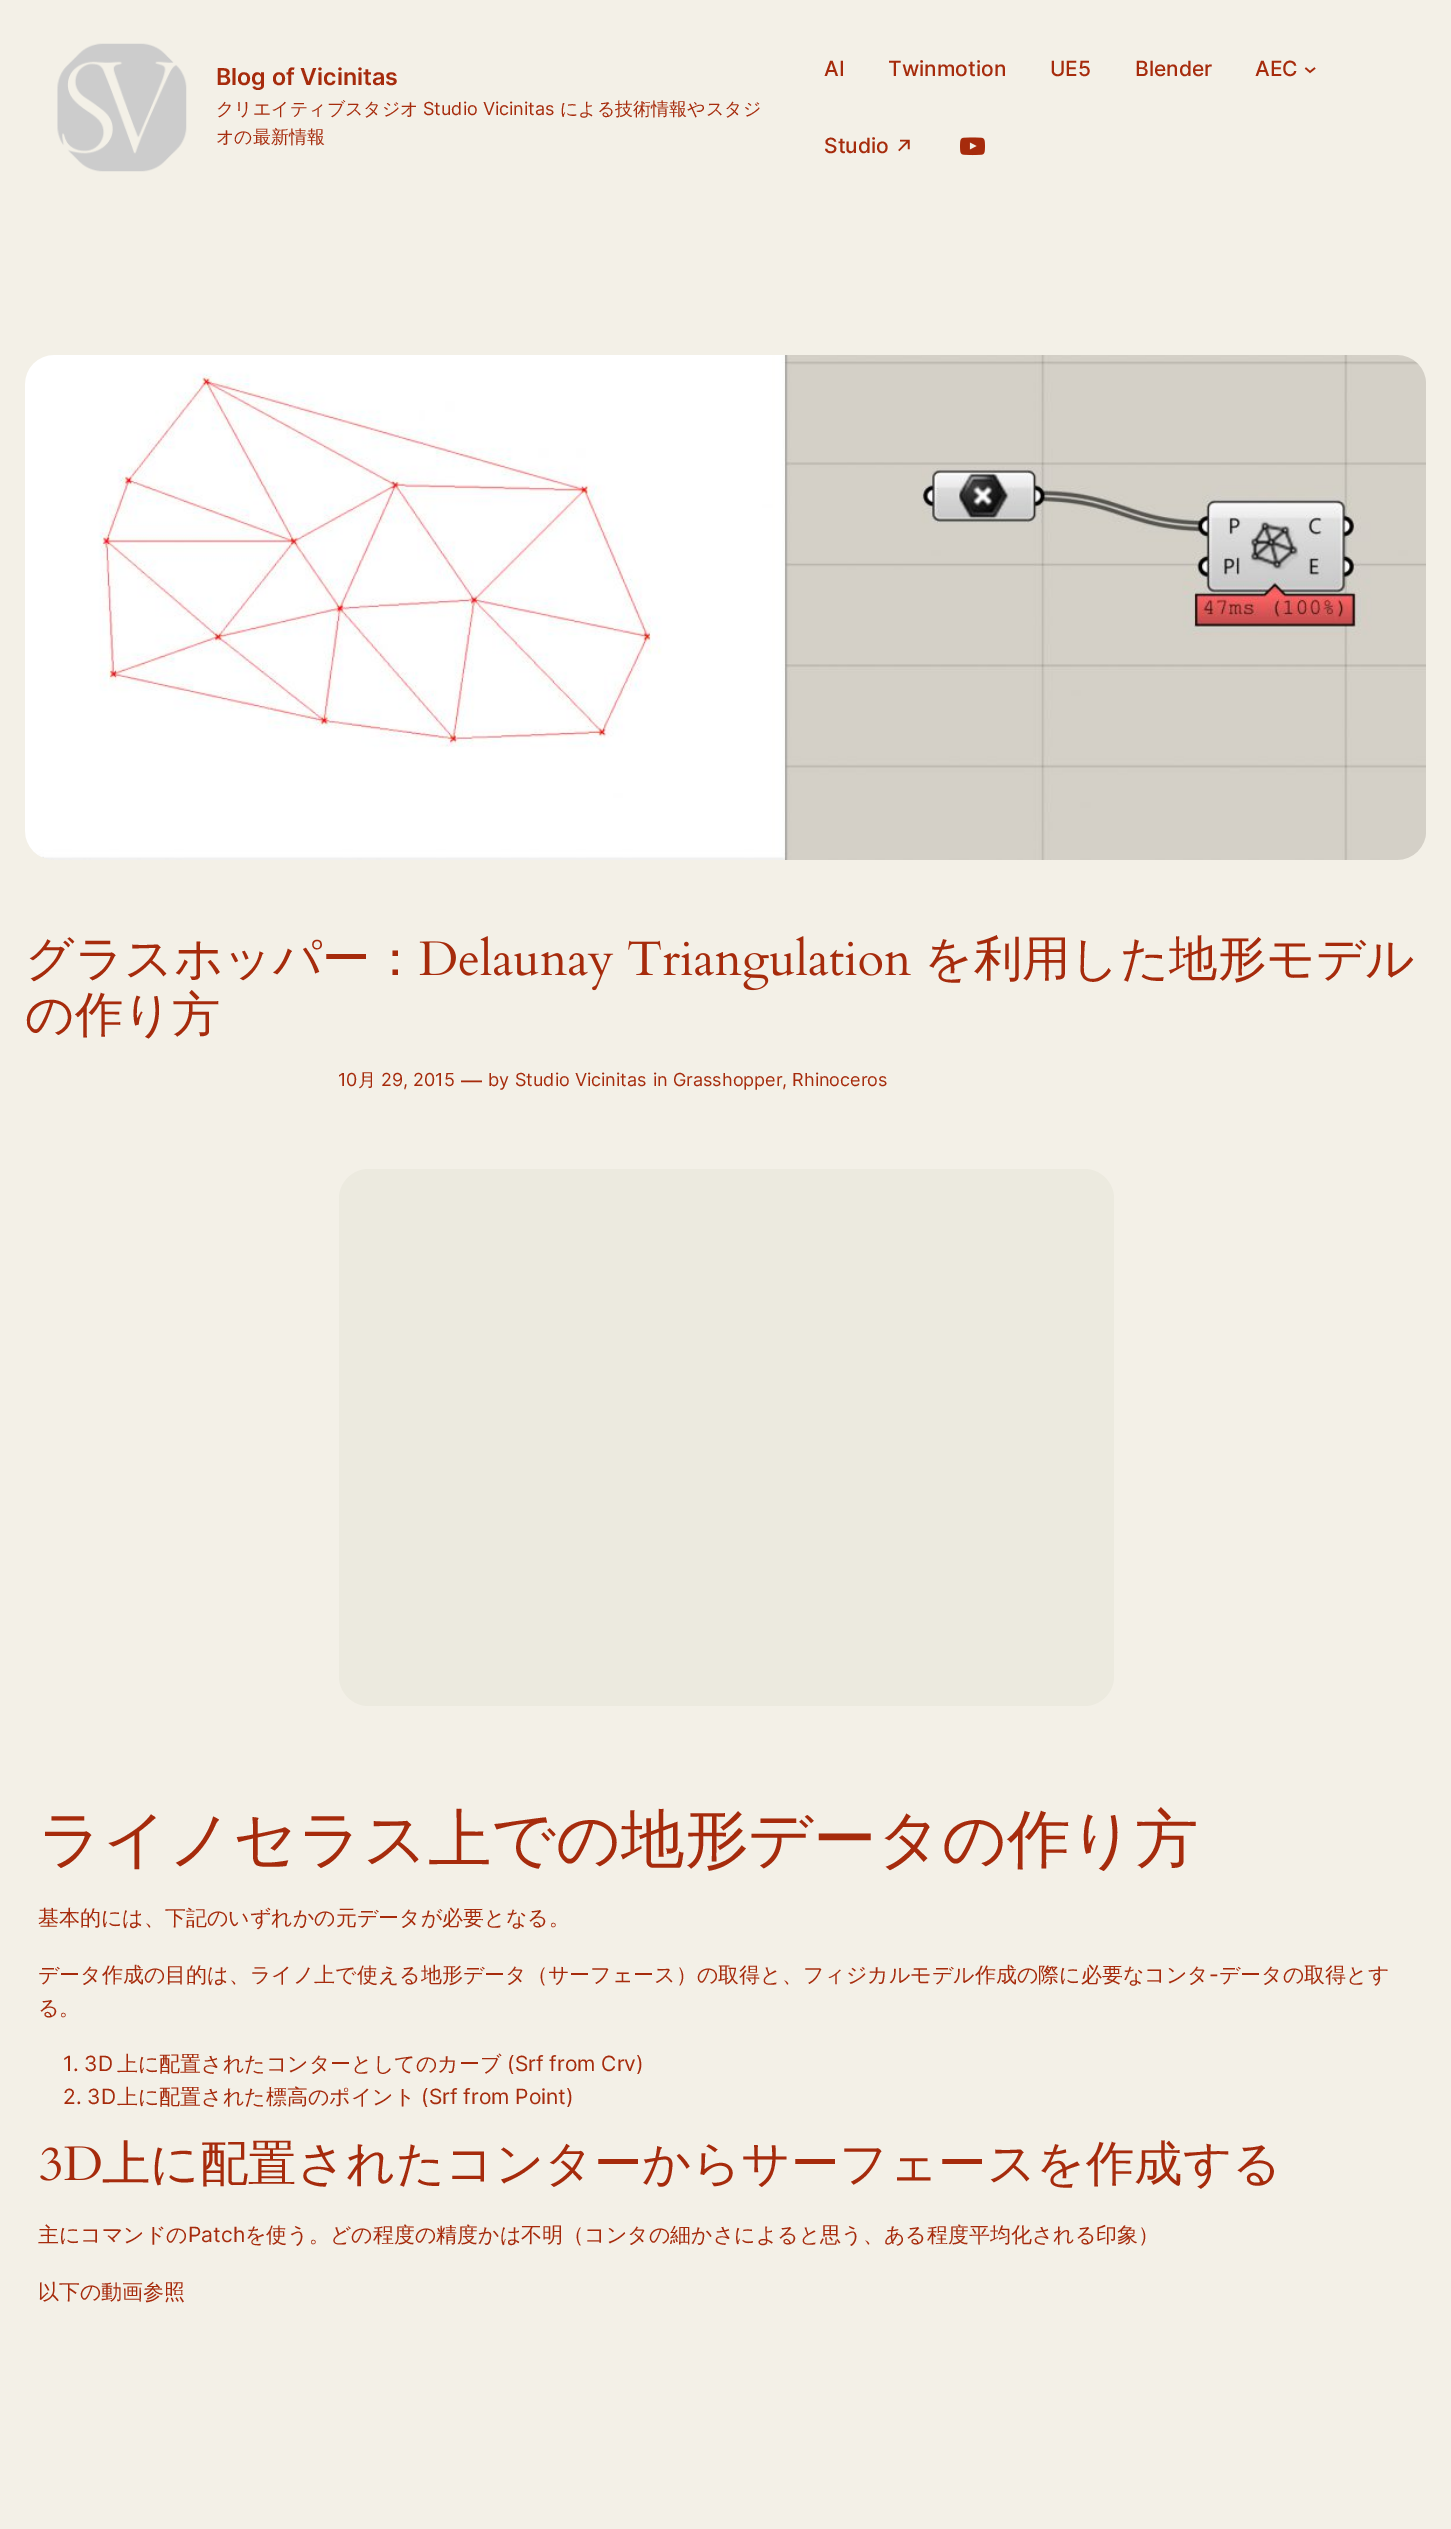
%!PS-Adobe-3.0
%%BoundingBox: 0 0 1451 2529
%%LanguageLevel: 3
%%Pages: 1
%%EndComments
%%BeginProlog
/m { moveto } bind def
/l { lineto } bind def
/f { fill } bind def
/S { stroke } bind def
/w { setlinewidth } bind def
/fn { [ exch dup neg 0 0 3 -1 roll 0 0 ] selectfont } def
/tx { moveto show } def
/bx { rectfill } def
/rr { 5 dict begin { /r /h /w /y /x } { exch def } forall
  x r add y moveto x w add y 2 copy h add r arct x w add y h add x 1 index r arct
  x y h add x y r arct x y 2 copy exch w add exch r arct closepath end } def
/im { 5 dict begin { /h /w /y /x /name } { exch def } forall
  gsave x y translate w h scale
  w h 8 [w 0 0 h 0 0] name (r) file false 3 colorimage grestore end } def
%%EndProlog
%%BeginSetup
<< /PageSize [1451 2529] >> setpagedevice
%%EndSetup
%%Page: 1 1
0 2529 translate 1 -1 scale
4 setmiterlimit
0.953 0.941 0.906 setrgbcolor
0 0 1451 2529 bx
(image0.raw) 57 43 130 129 im
/Inter-SemiBold 23.25 fn
0.651 0.169 0.047 setrgbcolor
(Blog of Vicinitas) 216 85 tx
/WenQuanYiZenHei-Medium 18 fn
(クリエイティブスタジオ) 216 115 tx
/Inter-Regular 18 fn
(Studio Vicinitas) 423 115 tx
/WenQuanYiZenHei-Medium 18 fn
(による技術情報やスタジ) 560 115 tx
(オの最新情報) 216 143 tx
/Inter-Medium 21 fn
(AI) 824 76 tx
(Twinmotion) 888 76 tx
(UE5) 1050 76 tx
(Blender) 1135 76 tx
(AEC) 1255 76 tx
1.6 w
1305.5 68 m 1310 72 l 1315 68 l S
(Studio) 824 153 tx
(↗) 894 155 tx
(image1.raw) 960 137 25 19 im
(image2.raw) 25 355 1401 505 im
/WenQuanYiZenHei-Medium 48.4 fn
(グラスホッパー：) 25 975 tx
(image3.raw) 419 936 492 55 im
(を利用した地形モデル) 924 975 tx
(の作り方) 25 1031 tx
/Inter-Regular 18 fn
(10) 338 1086 tx
/WenQuanYiZenHei-Medium 18 fn
(月) 358 1086 tx
/Inter-Regular 18 fn
(29, 2015) 381 1086 tx
/Inter-Regular 21 fn
(—) 461 1088 tx
/Inter-Regular 18 fn
(by) 488 1086 tx
(Studio Vicinitas) 515 1086 tx
(in Grasshopper, Rhinoceros) 653 1086 tx
0.925 0.918 0.875 setrgbcolor
339 1169 775 537 30 rr f
/WenQuanYiZenHei-Medium 63.5 fn
0.651 0.169 0.047 setrgbcolor
(ライノセラス上での地形データの作り方) 38 1861 tx
/WenQuanYiZenHei-Medium 21 fn
(基本的には、下記のいずれかの元データが必要となる。) 38 1925 tx
(データ作成の目的は、ライノ上で使える地形データ（サーフェース）の取得と、フィジカルモデル作成の際に必要なコンタ) 38 1982 tx
/Inter-Regular 21 fn
(-) 1209 1982 tx
/WenQuanYiZenHei-Medium 21 fn
(データの取得とす) 1219 1982 tx
(る。) 38 2015 tx
/Inter-Regular 21 fn
(1. 3D) 63 2071 tx
/WenQuanYiZenHei-Medium 21 fn
(上に配置されたコンターとしてのカーブ) 117 2071 tx
/Inter-Regular 21 fn
(\(Srf from Crv\)) 507 2071 tx
(2. 3D) 63 2104 tx
/WenQuanYiZenHei-Medium 21 fn
(上に配置された標高のポイント) 117 2104 tx
/Inter-Regular 21 fn
(\(Srf from Point\)) 421 2104 tx
(image4.raw) 40 2146 61 35 im
/WenQuanYiZenHei-Medium 48.4 fn
(上に配置されたコンターからサーフェースを作成する) 102 2180 tx
/WenQuanYiZenHei-Medium 21 fn
(主にコマンドの) 38 2242 tx
/Inter-Regular 21 fn
(Patch) 188 2242 tx
/WenQuanYiZenHei-Medium 21 fn
(を使う。どの程度の精度かは不明（コンタの細かさによると思う、ある程度平均化される印象）) 245 2242 tx
(以下の動画参照) 38 2299 tx
showpage
%%EOF
